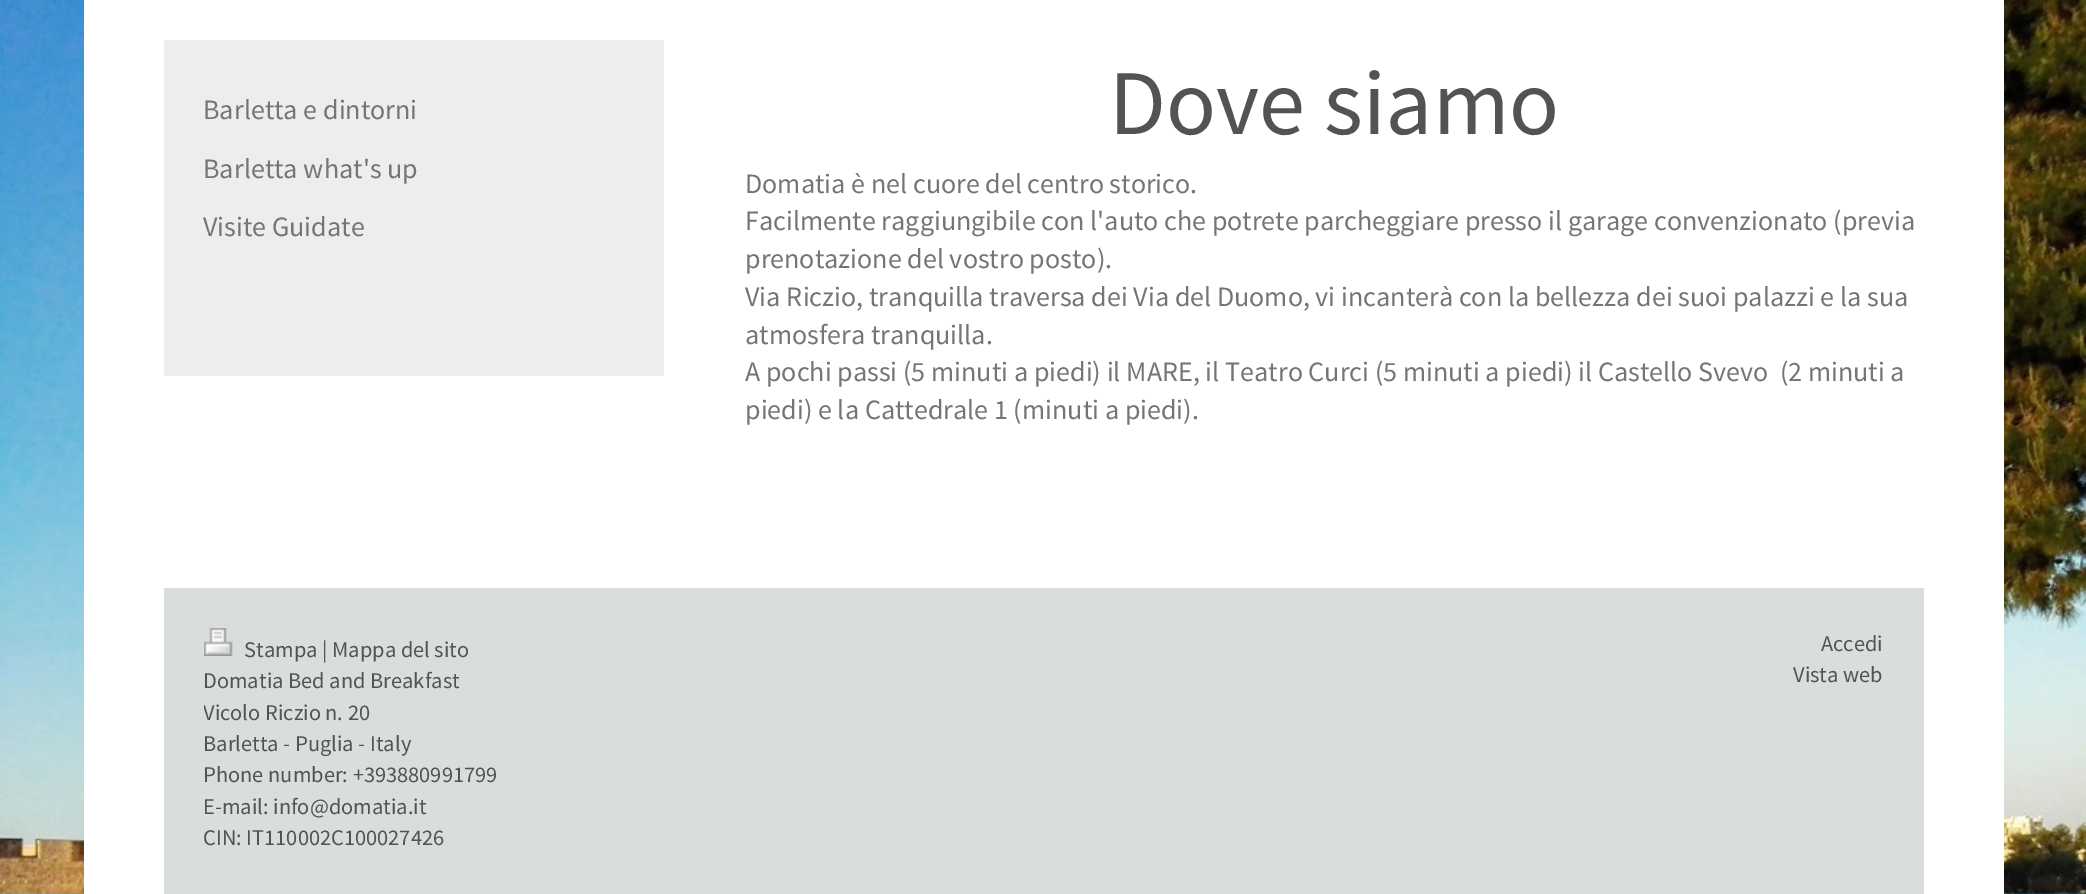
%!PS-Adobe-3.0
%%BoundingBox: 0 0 2086 894
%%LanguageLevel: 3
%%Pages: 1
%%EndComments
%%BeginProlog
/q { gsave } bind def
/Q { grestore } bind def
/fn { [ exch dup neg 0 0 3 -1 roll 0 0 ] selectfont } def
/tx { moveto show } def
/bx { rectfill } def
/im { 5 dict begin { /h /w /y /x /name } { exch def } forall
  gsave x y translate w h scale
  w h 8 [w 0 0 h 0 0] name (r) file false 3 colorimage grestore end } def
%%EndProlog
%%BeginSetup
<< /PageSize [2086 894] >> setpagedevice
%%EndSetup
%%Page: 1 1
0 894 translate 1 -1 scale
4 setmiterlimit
1 setgray
0 0 2086 894 bx
(image0.raw) 0 0 2086 894 im
84 0 1920 894 bx
0.929 setgray
164 40 500 336 bx
/SourceSansPro-Regular 28 fn
0.459 setgray
(Barletta e dintorni) 203 119 tx
(Barletta what's up) 203 178 tx
(Visite Guidate) 203 236 tx
/SourceSansPro-Regular 92.5 fn
0.325 setgray
(Dove siamo) 1109 134 tx
/SourceSansPro-Regular 28 fn
0.459 setgray
(Domatia è nel cuore del centro storico.) 745 193 tx
(Facilmente raggiungibile con l'auto che potrete parcheggiare presso il garage convenzionato \(previa) 745 230 tx
(prenotazione del vostro posto\).) 745 268 tx
(Via Riczio, tranquilla traversa dei Via del Duomo, vi incanterà con la bellezza dei suoi palazzi e la sua) 745 306 tx
(atmosfera tranquilla.) 745 344 tx
(A pochi passi \(5 minuti a piedi\) il MARE, il Teatro Curci \(5 minuti a piedi\) il Castello Svevo  \(2 minuti a) 745 381 tx
(piedi\) e la Cattedrale 1 \(minuti a piedi\).) 745 419 tx
0.851 0.867 0.867 setrgbcolor
164 588 1760 306 bx
(image1.raw) 204 628 29 28 im
/SourceSansPro-Regular 22.4 fn
0.325 setgray
(Stampa | Mappa del sito) 244 657 tx
(Domatia Bed and Breakfast) 203 688 tx
q
204 628 1680 226 rectclip
(Vicolo Riczio n. 20) 203 720 tx
Q
(Barletta - Puglia - Italy) 203 751 tx
(Phone number: +393880991799) 203 782 tx
(E-mail: info@domatia.it) 203 814 tx
(CIN: IT110002C100027426) 203 845 tx
(Accedi) 1821 651 tx
(Vista web) 1793 682 tx
showpage
%%EOF
